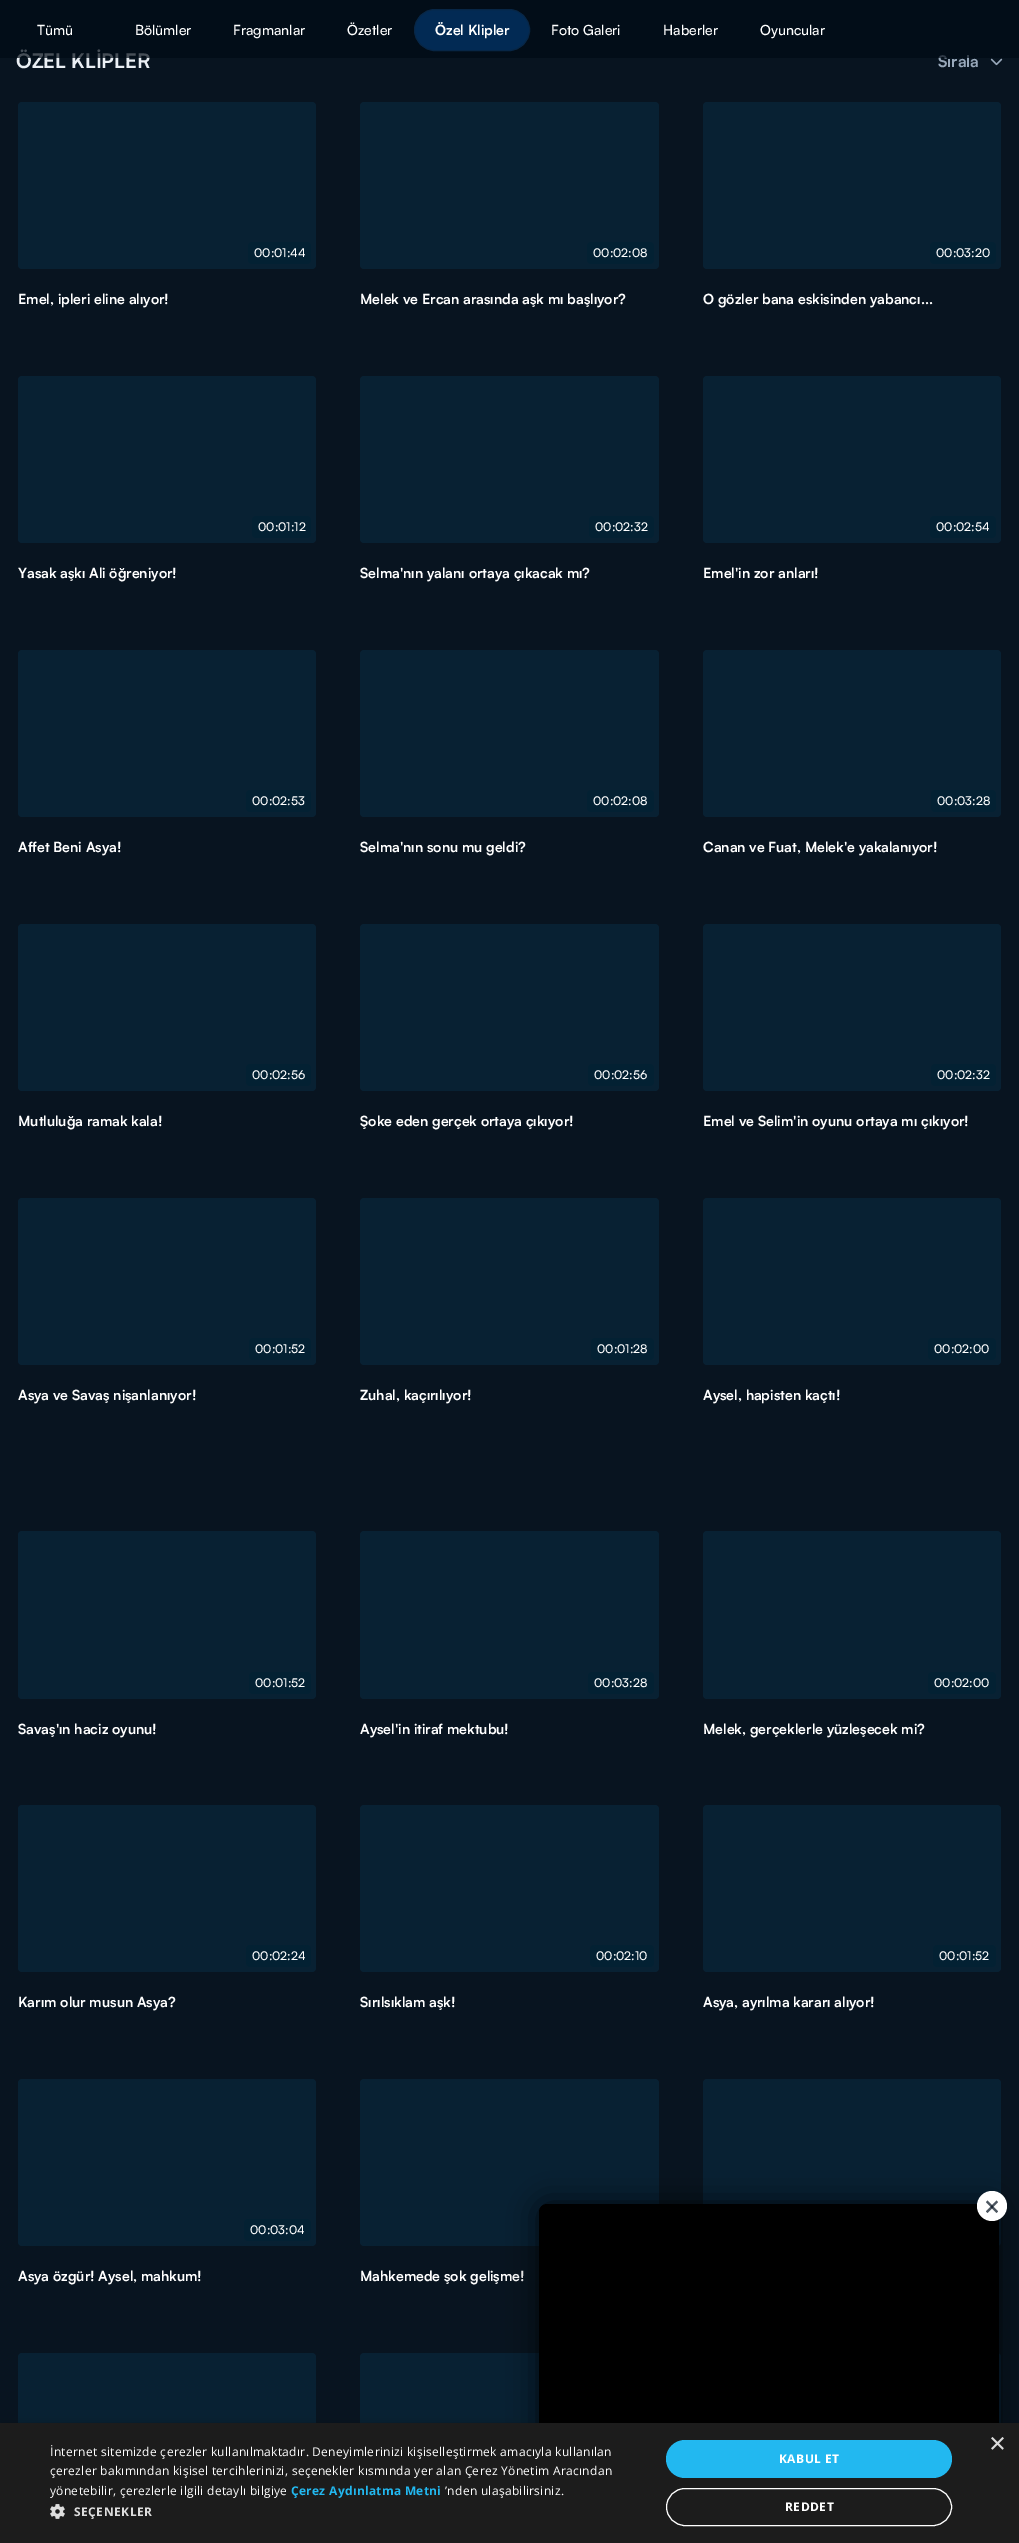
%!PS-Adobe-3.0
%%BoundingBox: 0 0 1019 2543
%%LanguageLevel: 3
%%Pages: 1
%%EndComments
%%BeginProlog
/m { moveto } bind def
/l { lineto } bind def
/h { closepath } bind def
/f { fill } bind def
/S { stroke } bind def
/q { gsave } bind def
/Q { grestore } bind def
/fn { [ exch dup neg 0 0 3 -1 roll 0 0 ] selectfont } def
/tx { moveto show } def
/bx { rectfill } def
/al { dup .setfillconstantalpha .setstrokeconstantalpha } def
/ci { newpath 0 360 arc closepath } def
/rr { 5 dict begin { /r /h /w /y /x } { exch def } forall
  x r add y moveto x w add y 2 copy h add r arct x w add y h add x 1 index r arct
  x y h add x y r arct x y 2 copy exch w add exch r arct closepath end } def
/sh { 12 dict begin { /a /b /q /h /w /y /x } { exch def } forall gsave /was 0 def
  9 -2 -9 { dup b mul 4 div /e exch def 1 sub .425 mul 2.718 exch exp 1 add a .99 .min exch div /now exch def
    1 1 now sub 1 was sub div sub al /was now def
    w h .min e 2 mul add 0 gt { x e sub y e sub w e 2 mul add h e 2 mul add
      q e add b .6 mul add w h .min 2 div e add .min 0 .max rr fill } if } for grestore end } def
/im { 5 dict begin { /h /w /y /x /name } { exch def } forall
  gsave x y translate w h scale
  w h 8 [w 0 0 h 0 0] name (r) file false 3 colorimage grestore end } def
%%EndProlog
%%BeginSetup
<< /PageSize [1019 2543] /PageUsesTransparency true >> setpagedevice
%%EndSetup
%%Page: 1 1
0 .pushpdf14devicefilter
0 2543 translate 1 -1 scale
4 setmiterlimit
0.031 0.078 0.125 setrgbcolor
0 0 1019 2543 bx
/Satoshi-Bold 20 fn
0.918 0.937 0.957 setrgbcolor
(ÖZEL KLİPLER) 16 68 tx
/Satoshi-Bold 16 fn
0.6 0.663 0.733 setrgbcolor
(Sırala) 938 67 tx
0.7 al
0 0.039 0.082 setrgbcolor
0 0 1019 58 bx
/Satoshi-Medium 14 fn
1 al
1 setgray
(Tümü) 37 35 tx
(Bölümler) 135 35 tx
(Fragmanlar) 233 35 tx
(Özetler) 347 35 tx
0.008 0.165 0.329 setrgbcolor
414.5 9.5 115 41 20.5 rr q f Q
0.027 0.149 0.275 setrgbcolor
S
/Satoshi-Bold 14 fn
1 setgray
(Özel Klipler) 435 35 tx
/Satoshi-Medium 14 fn
(Foto Galeri) 551 35 tx
(Haberler) 663 35 tx
(Oyuncular) 760 35 tx
(image0.raw) 990 58 13 8 im
0.031 0.129 0.2 setrgbcolor
18 102 298 167 4 rr f
0.012 0.129 0.2 setrgbcolor
248 242 63 22 4 rr f
/Satoshi-Medium 12 fn
1 setgray
(00:01:44) 254 257 tx
/Satoshi-Bold 14 fn
(Emel, ipleri eline alıyor!) 18 304 tx
0.031 0.129 0.2 setrgbcolor
360 102 299 167 4 rr f
0.012 0.129 0.2 setrgbcolor
587 242 67 22 4 rr f
/Satoshi-Medium 12 fn
1 setgray
(00:02:08) 593 257 tx
/Satoshi-Bold 14 fn
(Melek ve Ercan arasında aşk mı başlıyor?) 360 304 tx
0.031 0.129 0.2 setrgbcolor
703 102 298 167 4 rr f
0.012 0.129 0.2 setrgbcolor
930 242 66 22 4 rr f
/Satoshi-Medium 12 fn
1 setgray
(00:03:20) 936 257 tx
/Satoshi-Bold 14 fn
(O gözler bana eskisinden yabancı...) 703 304 tx
0.031 0.129 0.2 setrgbcolor
18 376 298 167 4 rr f
0.012 0.129 0.2 setrgbcolor
252 516 59 22 4 rr f
/Satoshi-Medium 12 fn
1 setgray
(00:01:12) 258 531 tx
/Satoshi-Bold 14 fn
(Yasak aşkı Ali öğreniyor!) 18 578 tx
0.031 0.129 0.2 setrgbcolor
360 376 299 167 4 rr f
0.012 0.129 0.2 setrgbcolor
589 516 65 22 4 rr f
/Satoshi-Medium 12 fn
1 setgray
(00:02:32) 595 531 tx
/Satoshi-Bold 14 fn
(Selma'nın yalanı ortaya çıkacak mı?) 360 578 tx
0.031 0.129 0.2 setrgbcolor
703 376 298 167 4 rr f
0.012 0.129 0.2 setrgbcolor
930 516 66 22 4 rr f
/Satoshi-Medium 12 fn
1 setgray
(00:02:54) 936 531 tx
/Satoshi-Bold 14 fn
(Emel'in zor anları!) 703 578 tx
0.031 0.129 0.2 setrgbcolor
18 650 298 167 4 rr f
0.012 0.129 0.2 setrgbcolor
246 790 65 22 4 rr f
/Satoshi-Medium 12 fn
1 setgray
(00:02:53) 252 805 tx
/Satoshi-Bold 14 fn
(Affet Beni Asya!) 18 852 tx
0.031 0.129 0.2 setrgbcolor
360 650 299 167 4 rr f
0.012 0.129 0.2 setrgbcolor
587 790 67 22 4 rr f
/Satoshi-Medium 12 fn
1 setgray
(00:02:08) 593 805 tx
/Satoshi-Bold 14 fn
(Selma'nın sonu mu geldi?) 360 852 tx
0.031 0.129 0.2 setrgbcolor
703 650 298 167 4 rr f
0.012 0.129 0.2 setrgbcolor
931 790 65 22 4 rr f
/Satoshi-Medium 12 fn
1 setgray
(00:03:28) 937 805 tx
/Satoshi-Bold 14 fn
(Canan ve Fuat, Melek'e yakalanıyor!) 703 852 tx
0.031 0.129 0.2 setrgbcolor
18 924 298 167 4 rr f
0.012 0.129 0.2 setrgbcolor
246 1064 65 22 4 rr f
/Satoshi-Medium 12 fn
1 setgray
(00:02:56) 252 1079 tx
/Satoshi-Bold 14 fn
(Mutluluğa ramak kala!) 18 1126 tx
0.031 0.129 0.2 setrgbcolor
360 924 299 167 4 rr f
0.012 0.129 0.2 setrgbcolor
588 1064 66 22 4 rr f
/Satoshi-Medium 12 fn
1 setgray
(00:02:56) 594 1079 tx
/Satoshi-Bold 14 fn
(Şoke eden gerçek ortaya çıkıyor!) 360 1126 tx
0.031 0.129 0.2 setrgbcolor
703 924 298 167 4 rr f
0.012 0.129 0.2 setrgbcolor
931 1064 65 22 4 rr f
/Satoshi-Medium 12 fn
1 setgray
(00:02:32) 937 1079 tx
/Satoshi-Bold 14 fn
(Emel ve Selim'in oyunu ortaya mı çıkıyor!) 703 1126 tx
0.031 0.129 0.2 setrgbcolor
18 1198 298 167 4 rr f
0.012 0.129 0.2 setrgbcolor
249 1338 62 22 4 rr f
/Satoshi-Medium 12 fn
1 setgray
(00:01:52) 255 1353 tx
/Satoshi-Bold 14 fn
(Asya ve Savaş nişanlanıyor!) 18 1400 tx
0.031 0.129 0.2 setrgbcolor
360 1198 299 167 4 rr f
0.012 0.129 0.2 setrgbcolor
591 1338 63 22 4 rr f
/Satoshi-Medium 12 fn
1 setgray
(00:01:28) 597 1353 tx
/Satoshi-Bold 14 fn
(Zuhal, kaçırılıyor!) 360 1400 tx
0.031 0.129 0.2 setrgbcolor
703 1198 298 167 4 rr f
0.012 0.129 0.2 setrgbcolor
928 1338 68 22 4 rr f
/Satoshi-Medium 12 fn
1 setgray
(00:02:00) 934 1353 tx
/Satoshi-Bold 14 fn
(Aysel, hapisten kaçtı!) 703 1400 tx
0.031 0.129 0.2 setrgbcolor
18 1531 298 168 4 rr f
0.012 0.129 0.2 setrgbcolor
249 1672 62 22 4 rr f
/Satoshi-Medium 12 fn
1 setgray
(00:01:52) 255 1687 tx
/Satoshi-Bold 14 fn
(Savaş'ın haciz oyunu!) 18 1734 tx
0.031 0.129 0.2 setrgbcolor
360 1531 299 168 4 rr f
0.012 0.129 0.2 setrgbcolor
588 1672 66 22 4 rr f
/Satoshi-Medium 12 fn
1 setgray
(00:03:28) 594 1687 tx
/Satoshi-Bold 14 fn
(Aysel'in itiraf mektubu!) 360 1734 tx
0.031 0.129 0.2 setrgbcolor
703 1531 298 168 4 rr f
0.012 0.129 0.2 setrgbcolor
928 1672 68 22 4 rr f
/Satoshi-Medium 12 fn
1 setgray
(00:02:00) 934 1687 tx
/Satoshi-Bold 14 fn
(Melek, gerçeklerle yüzleşecek mi?) 703 1734 tx
0.031 0.129 0.2 setrgbcolor
18 1805 298 167 4 rr f
0.012 0.129 0.2 setrgbcolor
246 1945 65 22 4 rr f
/Satoshi-Medium 12 fn
1 setgray
(00:02:24) 252 1960 tx
/Satoshi-Bold 14 fn
(Karım olur musun Asya?) 18 2007 tx
0.031 0.129 0.2 setrgbcolor
360 1805 299 167 4 rr f
0.012 0.129 0.2 setrgbcolor
590 1945 64 22 4 rr f
/Satoshi-Medium 12 fn
1 setgray
(00:02:10) 596 1960 tx
/Satoshi-Bold 14 fn
(Sırılsıklam aşk!) 360 2007 tx
0.031 0.129 0.2 setrgbcolor
703 1805 298 167 4 rr f
0.012 0.129 0.2 setrgbcolor
933 1945 63 22 4 rr f
/Satoshi-Medium 12 fn
1 setgray
(00:01:52) 939 1960 tx
/Satoshi-Bold 14 fn
(Asya, ayrılma kararı alıyor!) 703 2007 tx
0.031 0.129 0.2 setrgbcolor
703 2079 298 167 4 rr f
18 2079 298 167 4 rr f
0.012 0.129 0.2 setrgbcolor
244 2219 67 22 4 rr f
/Satoshi-Medium 12 fn
1 setgray
(00:03:04) 250 2234 tx
/Satoshi-Bold 14 fn
(Asya özgür! Aysel, mahkum!) 18 2281 tx
0.031 0.129 0.2 setrgbcolor
360 2079 299 167 4 rr f
1 setgray
(Mahkemede şok gelişme!) 360 2281 tx
0.031 0.129 0.2 setrgbcolor
18 2353 298 167 4 rr f
360 2353 299 167 4 rr f
703 2353 298 167 4 rr f
0 setgray
539 2204 460 259 8 15 0.74 sh
539 2204 460 259 8 rr f
1 setgray
992 2206 15 ci f
0.302 0.341 0.38 setrgbcolor
996.5 2200.5 m 998 2202 l 987.5 2213 l 986 2211.5 l h f
0.7 al
0.004 0.059 0.114 setrgbcolor
986 2202 m 987.5 2200.5 l 998 2211.5 l 996.5 2213 l h f
1 al
0 setgray
1 2425 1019 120 0 4 0.35 sh
0.11 setgray
0 2423 1019 120 bx
/LiberationSans-Regular 29 fn
0.867 setgray
(×) 989 2453 tx
/OpenSans-Regular 12 fn
1 setgray
50 2456 m 0.3 0 (İnternet sitemizde çerezler kullanılmaktadır. Deneyimlerinizi kişiselleştirmek amacıyla kullanılan) ashow
50 2475 m 0.3 0 (çerezler bakımından kişisel tercihlerinizi, seçenekler kısmında yer alan Çerez Yönetim Aracından) ashow
50 2495 m 0.3 0 (yönetebilir, çerezlerle ilgili detaylı bilgiye) ashow
/OpenSans-Bold 12 fn
0.133 0.722 0.941 setrgbcolor
291 2495 m 0.3 0 (Çerez Aydınlatma Metni) ashow
/OpenSans-Regular 12 fn
1 setgray
445 2495 m 0.3 0 (’nden ulaşabilirsiniz.) ashow
(image1.raw) 50 2504 15 15 im
/OpenSans-Bold 12 fn
0.867 setgray
74 2516 m 0.5 0 (SEÇENEKLER) ashow
0.133 0.722 0.941 setrgbcolor
666 2440 286 38 19 rr f
1 setgray
779 2463 m 0.5 0 (KABUL ET) ashow
666.5 2488.5 285 37 18.5 rr S
785 2511 m 0.5 0 (REDDET) ashow
.poppdf14devicefilter showpage
%%EOF
